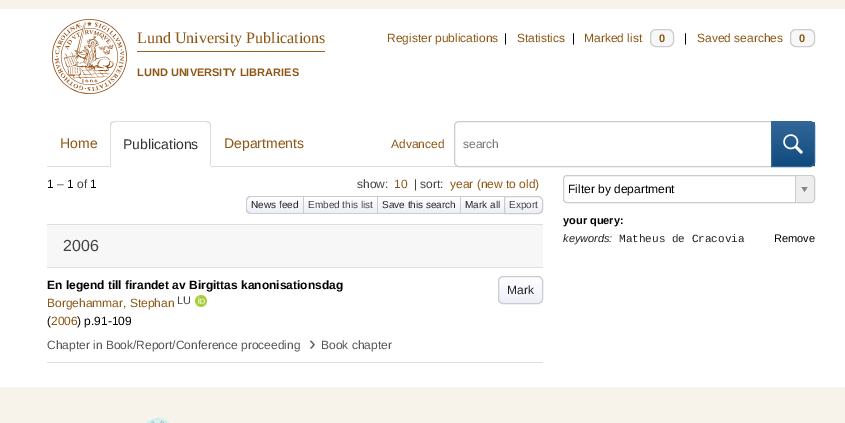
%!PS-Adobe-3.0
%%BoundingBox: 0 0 845 423
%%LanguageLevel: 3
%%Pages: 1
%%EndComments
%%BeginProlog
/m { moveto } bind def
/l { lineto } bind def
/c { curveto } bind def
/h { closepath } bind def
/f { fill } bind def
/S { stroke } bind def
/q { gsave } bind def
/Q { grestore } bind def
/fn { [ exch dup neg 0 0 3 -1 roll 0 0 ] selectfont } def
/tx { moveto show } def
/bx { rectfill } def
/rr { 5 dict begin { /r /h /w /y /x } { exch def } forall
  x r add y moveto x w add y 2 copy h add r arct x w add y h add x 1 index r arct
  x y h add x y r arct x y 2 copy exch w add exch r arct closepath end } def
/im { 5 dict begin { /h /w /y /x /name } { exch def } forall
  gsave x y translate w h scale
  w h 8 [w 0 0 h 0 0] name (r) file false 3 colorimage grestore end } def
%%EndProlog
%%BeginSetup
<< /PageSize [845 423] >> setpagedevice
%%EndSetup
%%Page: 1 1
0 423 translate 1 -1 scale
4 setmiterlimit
1 setgray
0 0 845 423 bx
0.973 0.953 0.918 setrgbcolor
0 0 845 9 bx
(image0.raw) 52 19 75 75 im
/LiberationSerif-Regular 16 fn
0.557 0.337 0.078 setrgbcolor
(Lund University Publications) 137 43 tx
0.612 0.38 0.078 setrgbcolor
137 51 188 1 bx
/LiberationSans-Bold 11 fn
0.557 0.337 0.078 setrgbcolor
(LUND UNIVERSITY LIBRARIES) 137 76 tx
/LiberationSans-Regular 12 fn
(Register publications) 387 42 tx
0 setgray
(|) 504 42 tx
0.557 0.337 0.078 setrgbcolor
(Statistics) 517 42 tx
0 setgray
(|) 572 42 tx
0.557 0.337 0.078 setrgbcolor
(Marked list) 584 42 tx
0.969 setgray
650.5 29.5 23 17 5.5 rr q f Q
0.8 setgray
S
/LiberationSans-Bold 11 fn
0.557 0.337 0.078 setrgbcolor
(0) 659 42 tx
/LiberationSans-Regular 12 fn
0 setgray
(|) 684 42 tx
0.557 0.337 0.078 setrgbcolor
(Saved searches) 697 42 tx
0.969 setgray
790.5 29.5 24 17 5.5 rr q f Q
0.8 setgray
S
/LiberationSans-Bold 11 fn
0.557 0.337 0.078 setrgbcolor
(0) 799 42 tx
0.867 setgray
47 166 768 1 bx
/LiberationSans-Regular 14 fn
0.557 0.337 0.078 setrgbcolor
(Home) 60 148 tx
1 setgray
115 121 m 206 121 l 209 121 211 123 211 126 c 211 167 l 110 167 l 110 126 l 110 123 112 121 115 121 c h f
0.867 setgray
115 121 m 114 121 112 122 111 122 c 112 123 l 115 122 l 206 122 l 209 123 l 210 122 l 209 122 208 121 206 121 c h f
211 167 m 211 126 l 211 124 210 123 210 122 c 209 123 l 210 124 210 125 210 126 c 210 166 l h f
1 setgray
211 167 m 210 166 l 111 166 l 110 167 l h f
0.867 setgray
110 167 m 111 166 l 111 126 l 111 125 112 124 112 123 c 111 122 l 110 123 110 124 110 126 c h f
0.2 setgray
(Publications) 123 149 tx
0.557 0.337 0.078 setrgbcolor
(Departments) 224 148 tx
/LiberationSans-Regular 12 fn
(Advanced) 391 148 tx
1 setgray
459 121.5 m 771.5 121.5 l 771.5 166.5 l 459 166.5 l 456.5 166.5 454.5 164.5 454.5 162 c 454.5 126 l 454.5 123.5 456.5 121.5 459 121.5 c h q f Q
0.8 setgray
S
0.459 setgray
(search) 463 148 tx
q
771 121 m 810 121 l 813 121 815 123 815 126 c 815 162 l 815 165 813 167 810 167 c 771 167 l h clip newpath
q 772 122 m 815 122 l 815 166 l 772 166 l h clip newpath
<< /ShadingType 2 /ColorSpace /DeviceRGB /Coords [793 122 793 166] /Extend [true true] /Function << /FunctionType 2 /Domain [0 1] /C0 [0.2 0.4 0.6] /C1 [0.063 0.294 0.49] /N 1 >> >> shfill Q
Q
0.2 0.4 0.6 setrgbcolor
771.5 121.5 m 810 121.5 l 812.5 121.5 814.5 123.5 814.5 126 c 814.5 162 l 814.5 164.5 812.5 166.5 810 166.5 c 771.5 166.5 l h S
(image1.raw) 783 134 20 20 im
0 setgray
(1) 47 188 tx
0.267 setgray
(–) 57 188 tx
0 setgray
(1) 67 188 tx
0.267 setgray
(of) 77 188 tx
0 setgray
(1) 90 188 tx
0.267 setgray
(show:) 357 188 tx
0.557 0.337 0.078 setrgbcolor
(10) 394 188 tx
0.267 setgray
(| sort:) 414 188 tx
0.557 0.337 0.078 setrgbcolor
(year \(new to old\)) 450 188 tx
q
251 196 m 303 196 l 303 214 l 251 214 l 248 214 246 212 246 209 c 246 201 l 246 198 248 196 251 196 c h clip newpath
q 246 197 m 303 197 l 303 213 l 246 213 l h clip newpath
<< /ShadingType 2 /ColorSpace /DeviceRGB /Coords [275 197 275 213] /Extend [true true] /Function << /FunctionType 2 /Domain [0 1] /C0 [1 1 1] /C1 [0.925 0.937 0.973] /N 1 >> >> shfill Q
Q
0.8 setgray
251 196 m 303 196 l 303 214 l 251 214 l 248 214 246 212 246 209 c 246 201 l 246 198 248 196 251 196 c h 251 197 m 303 197 l 303 213 l 251 213 l 249 213 247 211 247 209 c 247 201 l 247 199 249 197 251 197 c h eofill
/LiberationSans-Regular 10 fn
0.133 setgray
(News feed) 251 208 tx
q 304 199 m 377 199 l 377 213 l 304 213 l h clip newpath
<< /ShadingType 2 /ColorSpace /DeviceRGB /Coords [341 197 341 213] /Extend [true true] /Function << /FunctionType 2 /Domain [0 1] /C0 [1 1 1] /C1 [0.925 0.937 0.973] /N 1 >> >> shfill Q
0.8 setgray
303 196 201 1 bx
303 213 201 1 bx
303 196 1 18 bx
0.267 setgray
(Embed this list) 308 208 tx
q 378 199 m 460 199 l 460 213 l 378 213 l h clip newpath
<< /ShadingType 2 /ColorSpace /DeviceRGB /Coords [419 197 419 213] /Extend [true true] /Function << /FunctionType 2 /Domain [0 1] /C0 [1 1 1] /C1 [0.925 0.937 0.973] /N 1 >> >> shfill Q
0.8 setgray
377 196 1 18 bx
0.133 setgray
(Save this search) 382 208 tx
q 461 199 m 504 199 l 504 213 l 461 213 l h clip newpath
<< /ShadingType 2 /ColorSpace /DeviceRGB /Coords [483 197 483 213] /Extend [true true] /Function << /FunctionType 2 /Domain [0 1] /C0 [1 1 1] /C1 [0.925 0.937 0.973] /N 1 >> >> shfill Q
0.8 setgray
460 196 1 18 bx
0.133 setgray
(Mark all) 465 208 tx
q
504 196 m 538 196 l 541 196 543 198 543 201 c 543 209 l 543 212 541 214 538 214 c 504 214 l h clip newpath
q 505 197 m 543 197 l 543 213 l 505 213 l h clip newpath
<< /ShadingType 2 /ColorSpace /DeviceRGB /Coords [524 197 524 213] /Extend [true true] /Function << /FunctionType 2 /Domain [0 1] /C0 [1 1 1] /C1 [0.925 0.937 0.973] /N 1 >> >> shfill Q
Q
0.8 setgray
504.5 196.5 m 538 196.5 l 540.5 196.5 542.5 198.5 542.5 201 c 542.5 209 l 542.5 211.5 540.5 213.5 538 213.5 c 504.5 213.5 l h S
0.267 setgray
(Export) 509 208 tx
0.863 0.875 0.894 setrgbcolor
47 224 496 1 bx
0.969 setgray
47 225 496 42 bx
0.863 0.875 0.894 setrgbcolor
47 267 496 1 bx
/LiberationSans-Regular 16 fn
0.267 setgray
(2006) 63 251 tx
0.863 0.875 0.894 setrgbcolor
47 362 496 1 bx
/LiberationSans-Bold 12 fn
0 setgray
(En legend till firandet av Birgittas kanonisationsdag) 47 289 tx
q
498 276 45 28 5 rr clip newpath
q 498 277 m 543 277 l 543 303 l 498 303 l h clip newpath
<< /ShadingType 2 /ColorSpace /DeviceRGB /Coords [521 277 521 303] /Extend [true true] /Function << /FunctionType 2 /Domain [0 1] /C0 [1 1 1] /C1 [0.925 0.937 0.973] /N 1 >> >> shfill Q
Q
0.8 setgray
498.5 276.5 44 27 4.5 rr S
/LiberationSans-Regular 12 fn
0.133 setgray
(Mark) 507 294 tx
0.557 0.337 0.078 setrgbcolor
(Borgehammar, Stephan) 47 307 tx
/LiberationSans-Regular 11 fn
0.267 setgray
(LU) 177 304 tx
(image2.raw) 195 295 12 12 im
/LiberationSans-Regular 12 fn
0 setgray
(\() 47 325 tx
0.557 0.337 0.078 setrgbcolor
(2006) 51 325 tx
0 setgray
(\) p.91-109) 77 325 tx
0.333 setgray
(Chapter in Book/Report/Conference proceeding) 47 349 tx
/LiberationSans-Regular 20 fn
(›) 309 350 tx
/LiberationSans-Regular 12 fn
(Book chapter) 321 349 tx
0.8 setgray
563.5 175.5 251 27 3.5 rr S
0 setgray
(Filter by department) 568 193 tx
q
564 176 250 26 3 rr clip newpath
0.933 setgray
795 176 m 810 176 l 812 176 814 178 814 180 c 814 198 l 814 200 812 202 810 202 c 795 202 l h f
Q
0.8 setgray
795 176 1 26 bx
(image3.raw) 801 187 7 6 im
/LiberationSans-Bold 11 fn
0 setgray
(your query:) 563 224 tx
/LiberationSans-Italic 11 fn
0.133 setgray
(keywords:) 563 242 tx
/LiberationMono-Regular 11 fn
(Matheus de Cracovia) 619 242 tx
/LiberationSans-Regular 11 fn
0 setgray
(Remove) 774 242 tx
0.973 0.953 0.918 setrgbcolor
0 387 845 36 bx
(image4.raw) 146 418 23 5 im
showpage
%%EOF
